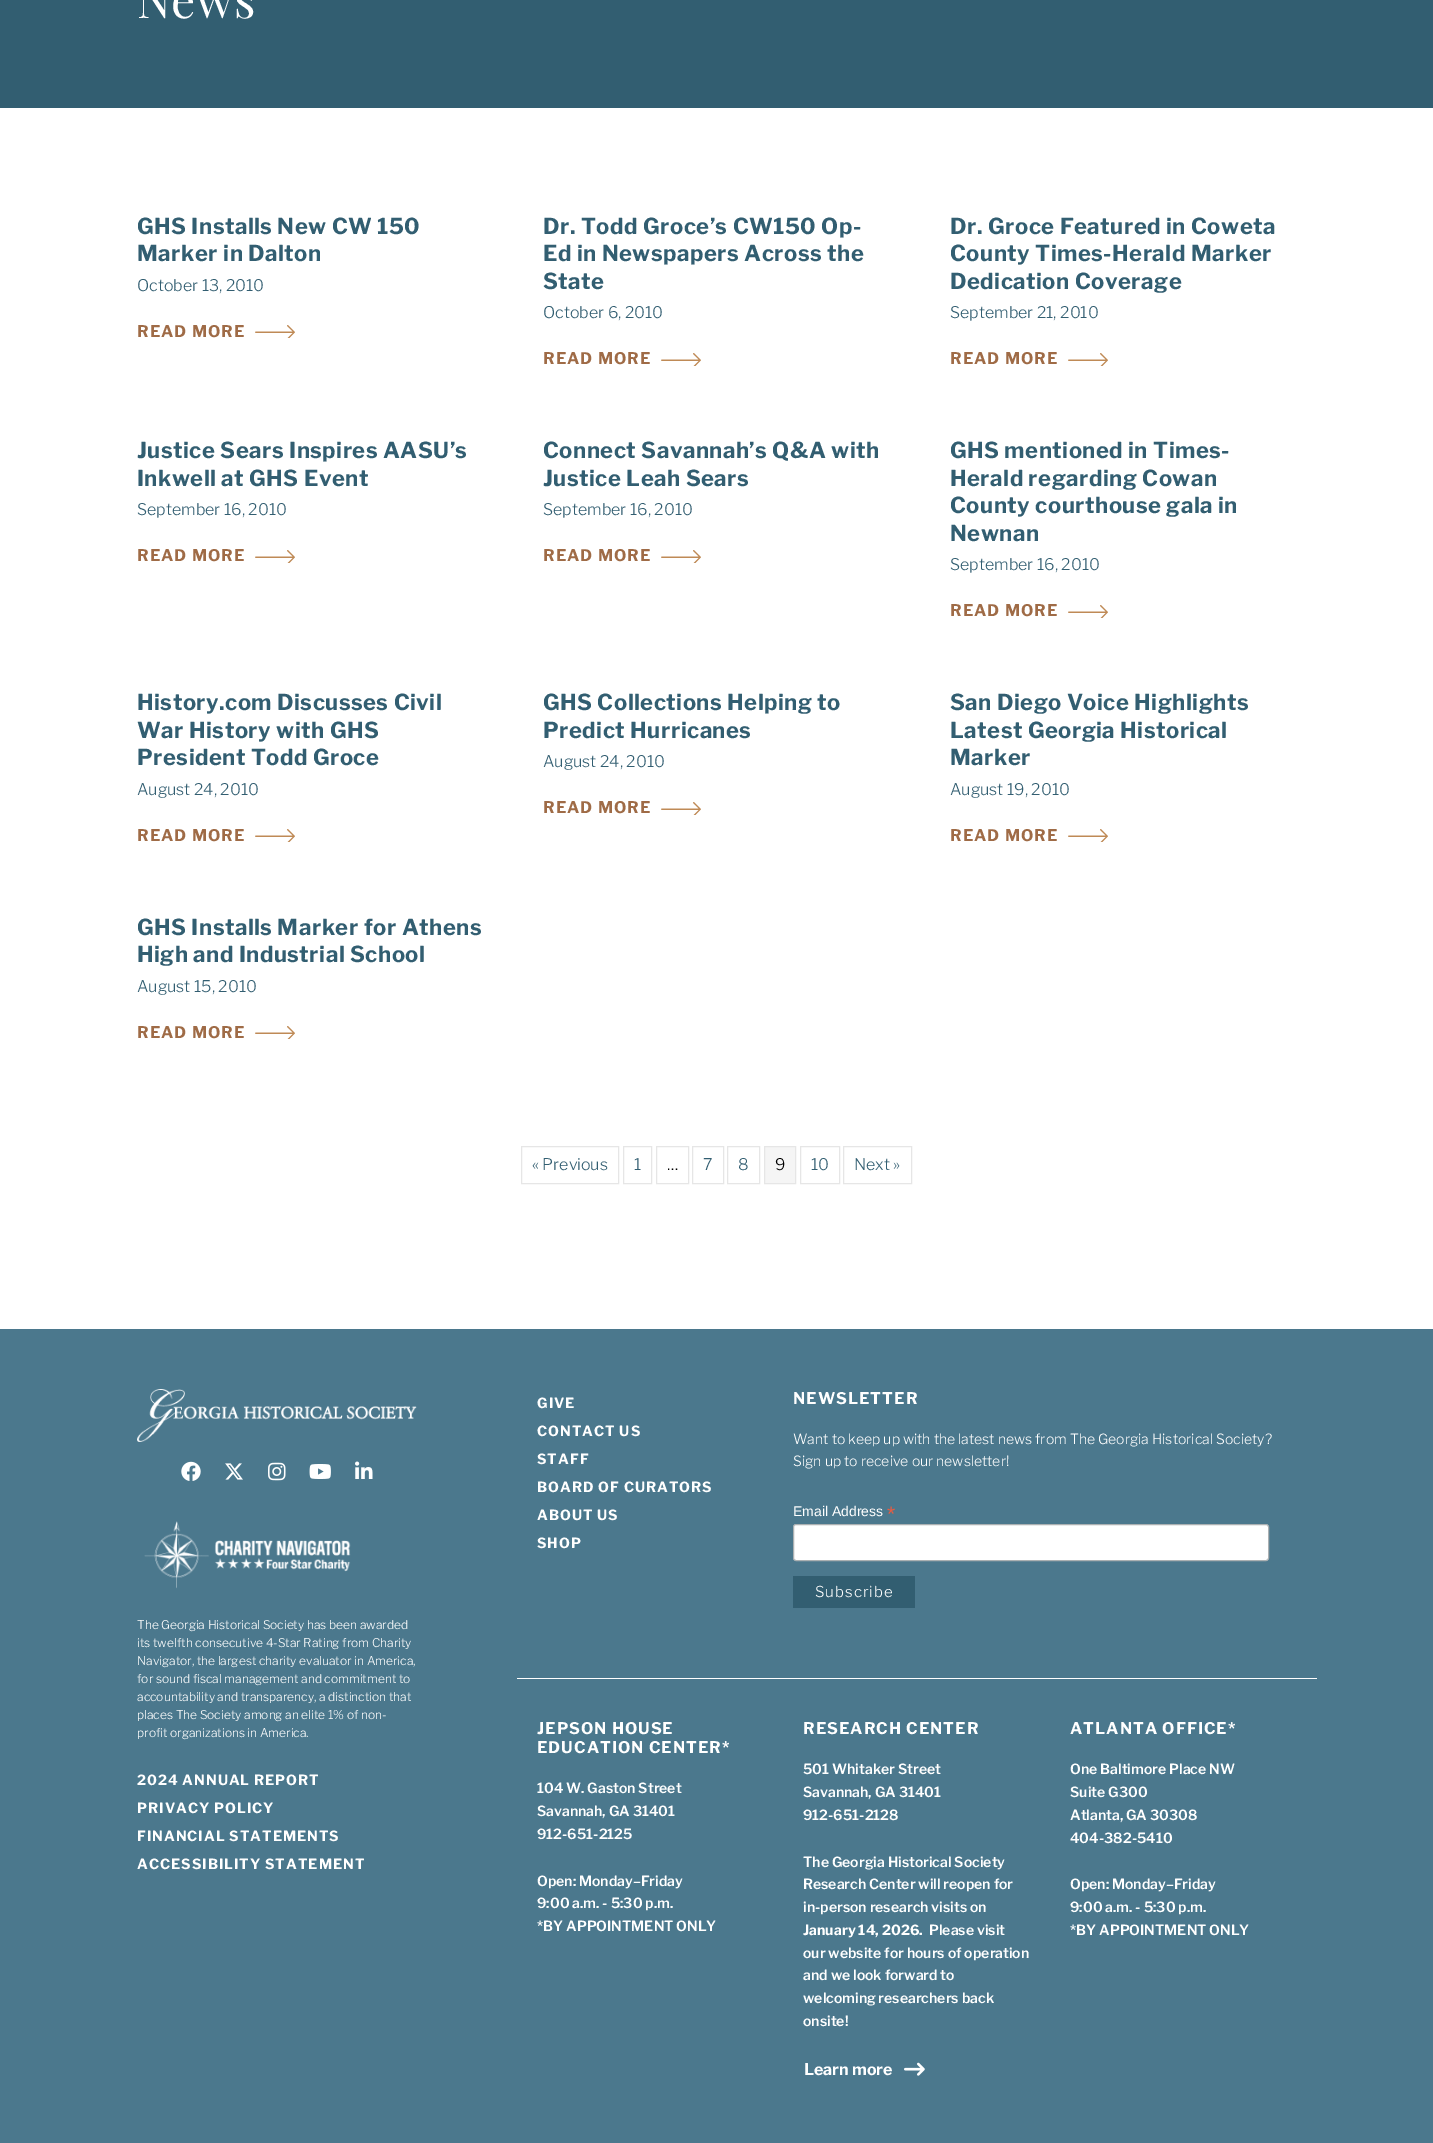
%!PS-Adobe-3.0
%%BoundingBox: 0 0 1433 2143
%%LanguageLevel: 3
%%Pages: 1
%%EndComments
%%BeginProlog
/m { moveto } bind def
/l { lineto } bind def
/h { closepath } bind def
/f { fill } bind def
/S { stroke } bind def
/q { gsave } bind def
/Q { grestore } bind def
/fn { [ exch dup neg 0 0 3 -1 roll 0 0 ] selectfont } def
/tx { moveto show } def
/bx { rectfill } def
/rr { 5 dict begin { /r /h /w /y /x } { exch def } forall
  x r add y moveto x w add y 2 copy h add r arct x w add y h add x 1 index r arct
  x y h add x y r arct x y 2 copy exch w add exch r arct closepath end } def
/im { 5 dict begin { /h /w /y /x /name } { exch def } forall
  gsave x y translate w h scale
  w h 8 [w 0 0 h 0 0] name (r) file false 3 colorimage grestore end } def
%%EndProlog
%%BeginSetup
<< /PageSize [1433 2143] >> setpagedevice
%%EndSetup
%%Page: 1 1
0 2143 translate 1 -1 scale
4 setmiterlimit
1 setgray
0 0 1433 2143 bx
0.196 0.369 0.443 setrgbcolor
0 0 1433 108 bx
/PlayfairDisplay-Regular 48 fn
1 setgray
137 18 m 0.5 0 (News) ashow
/LibreFranklin-Bold 22 fn
0.196 0.369 0.443 setrgbcolor
137 234 m 0.5 0 (GHS Installs New CW 150) ashow
137 261 m 0.5 0 (Marker in Dalton) ashow
/LibreFranklin-Light 16 fn
(October 13, 2010) 137 291 tx
/LibreFranklin-Bold 16 fn
0.624 0.42 0.275 setrgbcolor
137 337 m 1 0 (READ MORE) ashow
(image0.raw) 255 325 40 13 im
/LibreFranklin-Bold 22 fn
0.196 0.369 0.443 setrgbcolor
543 234 m 0.5 0 (Dr. Todd Groce’s CW150 Op-) ashow
543 261 m 0.5 0 (Ed in Newspapers Across the) ashow
543 289 m 0.5 0 (State) ashow
/LibreFranklin-Light 16 fn
(October 6, 2010) 543 318 tx
/LibreFranklin-Bold 16 fn
0.624 0.42 0.275 setrgbcolor
543 364 m 1 0 (READ MORE) ashow
(image0.raw) 661 353 40 13 im
/LibreFranklin-Bold 22 fn
0.196 0.369 0.443 setrgbcolor
950 234 m 0.5 0 (Dr. Groce Featured in Coweta) ashow
950 261 m 0.5 0 (County Times-Herald Marker) ashow
950 289 m 0.5 0 (Dedication Coverage) ashow
/LibreFranklin-Light 16 fn
(September 21, 2010) 950 318 tx
/LibreFranklin-Bold 16 fn
0.624 0.42 0.275 setrgbcolor
950 364 m 1 0 (READ MORE) ashow
(image0.raw) 1068 353 40 13 im
/LibreFranklin-Bold 22 fn
0.196 0.369 0.443 setrgbcolor
137 458 m 0.5 0 (Justice Sears Inspires AASU’s) ashow
137 486 m 0.5 0 (Inkwell at GHS Event) ashow
/LibreFranklin-Light 16 fn
(September 16, 2010) 137 515 tx
/LibreFranklin-Bold 16 fn
0.624 0.42 0.275 setrgbcolor
137 561 m 1 0 (READ MORE) ashow
(image0.raw) 255 550 40 13 im
/LibreFranklin-Bold 22 fn
0.196 0.369 0.443 setrgbcolor
543 458 m 0.5 0 (Connect Savannah’s Q&A with) ashow
543 486 m 0.5 0 (Justice Leah Sears) ashow
/LibreFranklin-Light 16 fn
(September 16, 2010) 543 515 tx
/LibreFranklin-Bold 16 fn
0.624 0.42 0.275 setrgbcolor
543 561 m 1 0 (READ MORE) ashow
(image0.raw) 661 550 40 13 im
/LibreFranklin-Bold 22 fn
0.196 0.369 0.443 setrgbcolor
950 458 m 0.5 0 (GHS mentioned in Times-) ashow
950 486 m 0.5 0 (Herald regarding Cowan) ashow
950 513 m 0.5 0 (County courthouse gala in) ashow
950 541 m 0.5 0 (Newnan) ashow
/LibreFranklin-Light 16 fn
(September 16, 2010) 950 570 tx
/LibreFranklin-Bold 16 fn
0.624 0.42 0.275 setrgbcolor
950 616 m 1 0 (READ MORE) ashow
(image0.raw) 1068 605 40 13 im
/LibreFranklin-Bold 22 fn
0.196 0.369 0.443 setrgbcolor
137 710 m 0.5 0 (History.com Discusses Civil) ashow
137 738 m 0.5 0 (War History with GHS) ashow
137 765 m 0.5 0 (President Todd Groce) ashow
/LibreFranklin-Light 16 fn
(August 24, 2010) 137 795 tx
/LibreFranklin-Bold 16 fn
0.624 0.42 0.275 setrgbcolor
137 841 m 1 0 (READ MORE) ashow
(image0.raw) 255 829 40 13 im
/LibreFranklin-Bold 22 fn
0.196 0.369 0.443 setrgbcolor
543 710 m 0.5 0 (GHS Collections Helping to) ashow
543 738 m 0.5 0 (Predict Hurricanes) ashow
/LibreFranklin-Light 16 fn
(August 24, 2010) 543 767 tx
/LibreFranklin-Bold 16 fn
0.624 0.42 0.275 setrgbcolor
543 813 m 1 0 (READ MORE) ashow
(image0.raw) 661 802 40 13 im
/LibreFranklin-Bold 22 fn
0.196 0.369 0.443 setrgbcolor
950 710 m 0.5 0 (San Diego Voice Highlights) ashow
950 738 m 0.5 0 (Latest Georgia Historical) ashow
950 765 m 0.5 0 (Marker) ashow
/LibreFranklin-Light 16 fn
(August 19, 2010) 950 795 tx
/LibreFranklin-Bold 16 fn
0.624 0.42 0.275 setrgbcolor
950 841 m 1 0 (READ MORE) ashow
(image0.raw) 1068 829 40 13 im
/LibreFranklin-Bold 22 fn
0.196 0.369 0.443 setrgbcolor
137 935 m 0.5 0 (GHS Installs Marker for Athens) ashow
137 962 m 0.5 0 (High and Industrial School) ashow
/LibreFranklin-Light 16 fn
(August 15, 2010) 137 992 tx
/LibreFranklin-Bold 16 fn
0.624 0.42 0.275 setrgbcolor
137 1038 m 1 0 (READ MORE) ashow
(image1.raw) 255 1026 40 13 im
0.902 setgray
521.5 1146.5 97 37 rectstroke
/LibreFranklin-Light 16 fn
0.196 0.369 0.443 setrgbcolor
(« Previous) 532 1170 tx
0.902 setgray
623.5 1146.5 28 37 rectstroke
0.196 0.369 0.443 setrgbcolor
(1) 634 1170 tx
0.902 setgray
656.5 1146.5 32 37 rectstroke
0 setgray
(…) 667 1170 tx
0.902 setgray
692.5 1146.5 31 37 rectstroke
0.196 0.369 0.443 setrgbcolor
(7) 703 1170 tx
0.902 setgray
727.5 1146.5 32 37 rectstroke
0.196 0.369 0.443 setrgbcolor
(8) 738 1170 tx
0.961 setgray
764.5 1146.5 m 795.5 1146.5 l 795.5 1183.5 l 764.5 1183.5 l h q f Q
0.902 setgray
S
0 setgray
(9) 775 1170 tx
0.902 setgray
800.5 1146.5 39 37 rectstroke
0.196 0.369 0.443 setrgbcolor
(10) 811 1170 tx
0.902 setgray
843.5 1146.5 68 37 rectstroke
0.196 0.369 0.443 setrgbcolor
(Next ») 854 1170 tx
0.294 0.471 0.553 setrgbcolor
0 1329 1433 814 bx
(image2.raw) 137 1389 280 53 im
(image3.raw) 181 1461 20 20 im
(image4.raw) 225 1463 18 17 im
(image5.raw) 268 1462 18 19 im
(image6.raw) 309 1464 22 15 im
(image7.raw) 355 1461 18 18 im
(image8.raw) 144 1521 207 68 im
/LibreFranklin-Light 12 fn
1 setgray
(The Georgia Historical Society has been awarded) 137 1629 tx
(its twelfth consecutive 4-Star Rating from Charity) 137 1647 tx
(Navigator, the largest charity evaluator in America,) 137 1665 tx
(for sound fiscal management and commitment to) 137 1683 tx
(accountability and transparency, a distinction that) 137 1701 tx
(places The Society among an elite 1% of non-) 137 1719 tx
(profit organizations in America.) 137 1737 tx
/LibreFranklin-Bold 14 fn
137 1785 m 1 0 (2024 ANNUAL REPORT) ashow
137 1813 m 1 0 (PRIVACY POLICY) ashow
137 1841 m 1 0 (FINANCIAL STATEMENTS) ashow
137 1869 m 1 0 (ACCESSIBILITY STATEMENT) ashow
537 1408 m 1 0 (GIVE) ashow
537 1436 m 1 0 (CONTACT US) ashow
537 1464 m 1 0 (STAFF) ashow
537 1492 m 1 0 (BOARD OF CURATORS) ashow
537 1520 m 1 0 (ABOUT US) ashow
537 1548 m 1 0 (SHOP) ashow
/LibreFranklin-Bold 16 fn
793 1404 m 1 0 (NEWSLETTER) ashow
/LibreFranklin-Light 14 fn
(Want to keep up with the latest news from The Georgia Historical Society?) 793 1444 tx
(Sign up to receive our newsletter!) 793 1466 tx
/LiberationSans-Regular 14 fn
(Email Address) 793 1516 tx
/LiberationSans-Regular 21 fn
0.91 0.361 0.255 setrgbcolor
(*) 887 1521 tx
1 setgray
793.5 1524.5 475 36 2.5 rr q f Q
0.671 0.69 0.698 setrgbcolor
S
0.196 0.369 0.443 setrgbcolor
793 1576 122 32 bx
/LibreFranklin-Light 15 fn
1 setgray
815 1597 m 1 0 (Subscribe) ashow
517 1678 800 1 bx
/LibreFranklin-Bold 16 fn
537 1734 m 1 0 (JEPSON HOUSE) ashow
537 1753 m 1 0 (EDUCATION CENTER*) ashow
/LibreFranklin-SemiBold 14 fn
(104 W. Gaston Street) 537 1793 tx
(Savannah, GA 31401) 537 1816 tx
(912-651-2125) 537 1839 tx
(Open: Monday–Friday) 537 1886 tx
(9:00 a.m. - 5:30 p.m.) 537 1908 tx
(*BY APPOINTMENT ONLY) 537 1931 tx
/LibreFranklin-Bold 16 fn
803 1734 m 1 0 (RESEARCH CENTER) ashow
/LibreFranklin-SemiBold 14 fn
(501 Whitaker Street) 803 1774 tx
(Savannah, GA 31401) 803 1797 tx
(912-651-2128) 803 1820 tx
(The Georgia Historical Society) 803 1867 tx
(Research Center will reopen for) 803 1889 tx
(in-person research visits on) 803 1912 tx
/LibreFranklin-Bold 14 fn
(January 14, 2026.) 803 1935 tx
/LibreFranklin-SemiBold 14 fn
(Please visit) 929 1935 tx
(our website for hours of operation) 803 1958 tx
(and we look forward to) 803 1980 tx
(welcoming researchers back) 803 2003 tx
(onsite!) 803 2026 tx
/LibreFranklin-Bold 16 fn
(Learn more) 804 2075 tx
(image9.raw) 904 2062 21 14 im
1070 1734 m 1 0 (ATLANTA OFFICE*) ashow
/LibreFranklin-SemiBold 14 fn
(One Baltimore Place NW) 1070 1774 tx
(Suite G300) 1070 1797 tx
(Atlanta, GA 30308) 1070 1820 tx
(404-382-5410) 1070 1843 tx
(Open: Monday–Friday) 1070 1889 tx
(9:00 a.m. - 5:30 p.m.) 1070 1912 tx
(*BY APPOINTMENT ONLY) 1070 1935 tx
showpage
%%EOF
